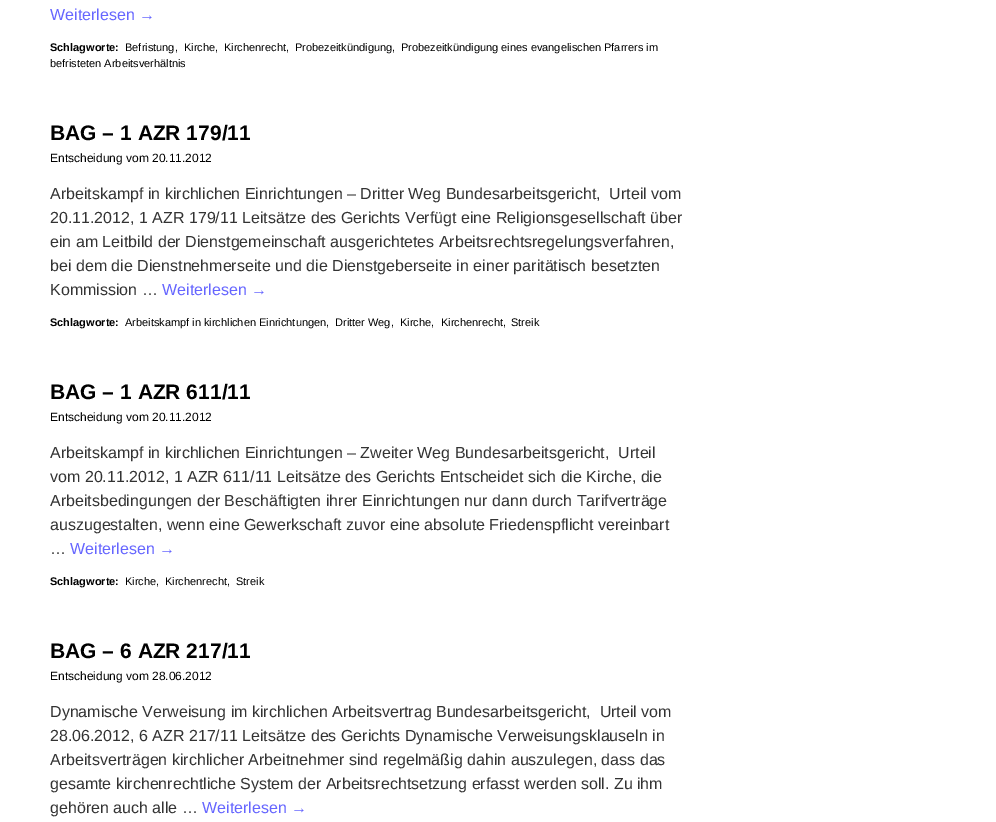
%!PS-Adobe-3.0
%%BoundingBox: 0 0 996 822
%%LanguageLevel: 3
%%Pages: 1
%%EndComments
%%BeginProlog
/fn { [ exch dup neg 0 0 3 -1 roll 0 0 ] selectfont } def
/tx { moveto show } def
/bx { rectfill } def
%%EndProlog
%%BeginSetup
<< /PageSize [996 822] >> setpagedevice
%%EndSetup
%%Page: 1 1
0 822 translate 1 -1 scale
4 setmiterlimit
1 setgray
0 0 996 822 bx
/LiberationSans-Regular 16 fn
0.4 0.4 1 setrgbcolor
(Weiterlesen →) 50 20 tx
/LiberationSans-Bold 11 fn
0 setgray
(Schlagworte:) 50 51 tx
/LiberationSans-Regular 11 fn
(Befristung,) 125 51 tx
(Kirche,) 184 51 tx
(Kirchenrecht,) 224 51 tx
(Probezeitkündigung,) 295 51 tx
(Probezeitkündigung eines evangelischen Pfarrers im) 401 51 tx
(befristeten Arbeitsverhältnis) 50 67 tx
/LiberationSans-Bold 21 fn
(BAG – 1 AZR 179/11) 50 140 tx
/LiberationSans-Regular 12 fn
(Entscheidung vom 20.11.2012) 50 162 tx
/LiberationSans-Regular 16 fn
0.2 setgray
(Arbeitskampf in kirchlichen Einrichtungen – Dritter Weg Bundesarbeitsgericht,  Urteil vom) 50 199 tx
(20.11.2012, 1 AZR 179/11 Leitsätze des Gerichts Verfügt eine Religionsgesellschaft über) 50 223 tx
(ein am Leitbild der Dienstgemeinschaft ausgerichtetes Arbeitsrechtsregelungsverfahren,) 50 247 tx
(bei dem die Dienstnehmerseite und die Dienstgeberseite in einer paritätisch besetzten) 50 271 tx
(Kommission …) 50 295 tx
0.4 0.4 1 setrgbcolor
(Weiterlesen →) 162 295 tx
/LiberationSans-Bold 11 fn
0 setgray
(Schlagworte:) 50 326 tx
/LiberationSans-Regular 11 fn
(Arbeitskampf in kirchlichen Einrichtungen,) 125 326 tx
(Dritter Weg,) 335 326 tx
(Kirche,) 400 326 tx
(Kirchenrecht,) 441 326 tx
(Streik) 511 326 tx
/LiberationSans-Bold 21 fn
(BAG – 1 AZR 611/11) 50 399 tx
/LiberationSans-Regular 12 fn
(Entscheidung vom 20.11.2012) 50 421 tx
/LiberationSans-Regular 16 fn
0.2 setgray
(Arbeitskampf in kirchlichen Einrichtungen – Zweiter Weg Bundesarbeitsgericht,  Urteil) 50 458 tx
(vom 20.11.2012, 1 AZR 611/11 Leitsätze des Gerichts Entscheidet sich die Kirche, die) 50 482 tx
(Arbeitsbedingungen der Beschäftigten ihrer Einrichtungen nur dann durch Tarifverträge) 50 506 tx
(auszugestalten, wenn eine Gewerkschaft zuvor eine absolute Friedenspflicht vereinbart) 50 530 tx
(…) 50 554 tx
0.4 0.4 1 setrgbcolor
(Weiterlesen →) 70 554 tx
/LiberationSans-Bold 11 fn
0 setgray
(Schlagworte:) 50 585 tx
/LiberationSans-Regular 11 fn
(Kirche,) 125 585 tx
(Kirchenrecht,) 165 585 tx
(Streik) 236 585 tx
/LiberationSans-Bold 21 fn
(BAG – 6 AZR 217/11) 50 658 tx
/LiberationSans-Regular 12 fn
(Entscheidung vom 28.06.2012) 50 680 tx
/LiberationSans-Regular 16 fn
0.2 setgray
(Dynamische Verweisung im kirchlichen Arbeitsvertrag Bundesarbeitsgericht,  Urteil vom) 50 717 tx
(28.06.2012, 6 AZR 217/11 Leitsätze des Gerichts Dynamische Verweisungsklauseln in) 50 741 tx
(Arbeitsverträgen kirchlicher Arbeitnehmer sind regelmäßig dahin auszulegen, dass das) 50 765 tx
(gesamte kirchenrechtliche System der Arbeitsrechtsetzung erfasst werden soll. Zu ihm) 50 789 tx
(gehören auch alle …) 50 813 tx
0.4 0.4 1 setrgbcolor
(Weiterlesen →) 202 813 tx
showpage
%%EOF
